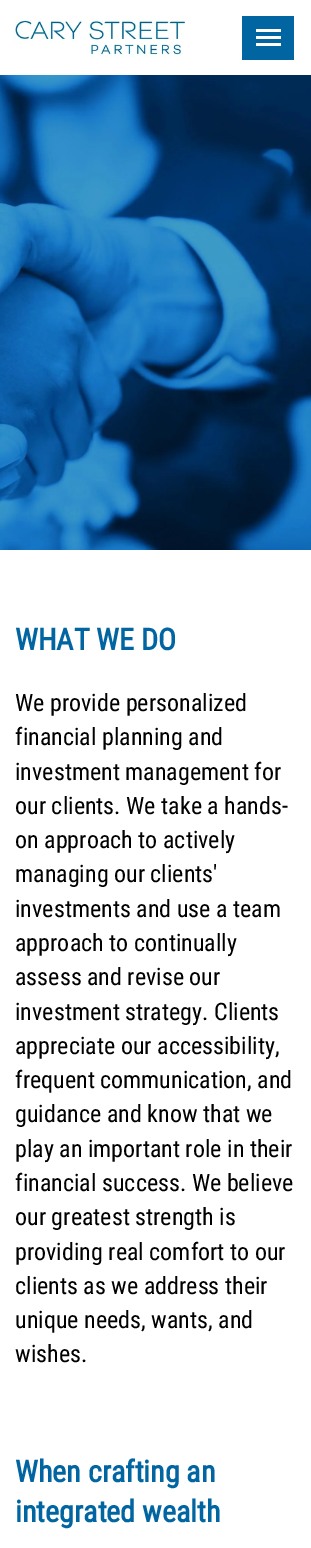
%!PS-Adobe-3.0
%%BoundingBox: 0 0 311 1548
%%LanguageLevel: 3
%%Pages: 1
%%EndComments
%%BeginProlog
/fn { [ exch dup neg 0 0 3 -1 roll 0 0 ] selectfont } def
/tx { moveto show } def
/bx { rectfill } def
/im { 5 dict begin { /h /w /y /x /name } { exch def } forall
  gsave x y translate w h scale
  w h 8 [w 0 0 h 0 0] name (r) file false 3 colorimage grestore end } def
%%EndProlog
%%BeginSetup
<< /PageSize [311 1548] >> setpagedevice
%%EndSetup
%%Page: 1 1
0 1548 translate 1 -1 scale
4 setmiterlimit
1 setgray
0 0 311 1548 bx
(image0.raw) 13 20 173 38 im
0 0.396 0.631 setrgbcolor
242 16 52 44 bx
1 setgray
256 29 25 3 bx
256 36 25 3 bx
256 43 25 3 bx
(image1.raw) 0 75 311 475 im
/RobotoCondensed-Bold 30 fn
0 0.396 0.631 setrgbcolor
(WHAT WE DO) 15 650 tx
/RobotoCondensed-Regular 24 fn
0 setgray
(We provide personalized) 15 711 tx
(financial planning and) 15 745 tx
(investment management for) 15 780 tx
(our clients. We take a hands-) 15 814 tx
(on approach to actively) 15 848 tx
(managing our clients') 15 882 tx
(investments and use a team) 15 917 tx
(approach to continually) 15 951 tx
(assess and revise our) 15 985 tx
(investment strategy. Clients) 15 1020 tx
(appreciate our accessibility,) 15 1054 tx
(frequent communication, and) 15 1088 tx
(guidance and know that we) 15 1122 tx
(play an important role in their) 15 1157 tx
(financial success. We believe) 15 1191 tx
(our greatest strength is) 15 1225 tx
(providing real comfort to our) 15 1260 tx
(clients as we address their) 15 1294 tx
(unique needs, wants, and) 15 1328 tx
(wishes.) 15 1362 tx
/RobotoCondensed-Bold 30 fn
0 0.396 0.631 setrgbcolor
(When crafting an) 15 1482 tx
(integrated wealth) 15 1522 tx
showpage
%%EOF
